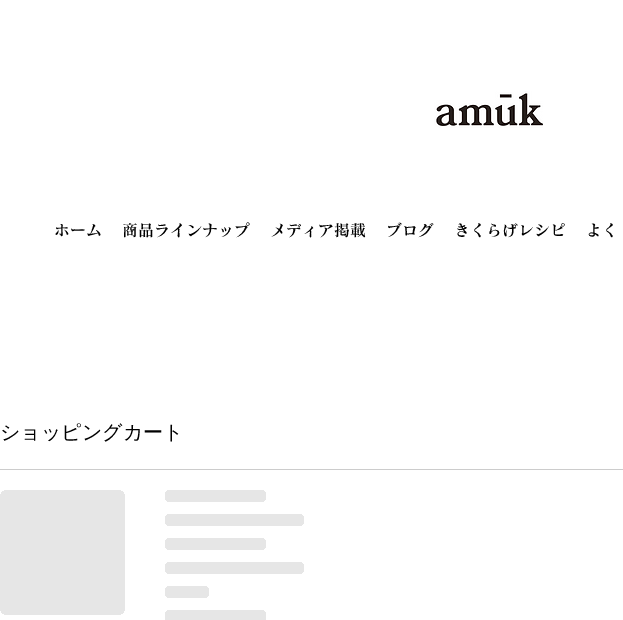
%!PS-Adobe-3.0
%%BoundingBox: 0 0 623 620
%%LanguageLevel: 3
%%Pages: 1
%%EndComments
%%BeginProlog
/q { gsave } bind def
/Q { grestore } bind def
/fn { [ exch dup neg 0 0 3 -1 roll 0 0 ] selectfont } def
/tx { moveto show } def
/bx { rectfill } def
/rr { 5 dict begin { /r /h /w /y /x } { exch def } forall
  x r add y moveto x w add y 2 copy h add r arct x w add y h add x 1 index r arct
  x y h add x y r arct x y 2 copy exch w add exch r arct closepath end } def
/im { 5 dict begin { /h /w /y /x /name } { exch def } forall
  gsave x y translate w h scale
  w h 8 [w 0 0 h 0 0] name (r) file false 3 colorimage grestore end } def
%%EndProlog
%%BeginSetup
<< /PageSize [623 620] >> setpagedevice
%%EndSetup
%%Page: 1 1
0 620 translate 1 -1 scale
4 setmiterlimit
1 setgray
0 0 623 620 bx
(image0.raw) 434 91 109 37 im
/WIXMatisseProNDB-SemiBold 16 fn
0 setgray
(ホーム) 54 236 tx
(商品ラインナップ) 122 236 tx
(メディア掲載) 270 236 tx
(ブログ) 386 236 tx
(きくらげレシピ) 454 236 tx
(よく) 586 236 tx
0.8 setgray
0 469 623 1 bx
/WenQuanYiZenHei-Medium 20 fn
0 setgray
(ショッピングカート) 0 439 tx
q 0 490 125 125 8 rr clip newpath
<< /ShadingType 2 /ColorSpace /DeviceRGB /Coords [0 553 500 553] /Extend [true true] /Function << /FunctionType 3 /Domain [0 1] /Functions [<< /FunctionType 2 /Domain [0 1] /C0 [0.902 0.902 0.902] /C1 [0.902 0.902 0.902] /N 1 >> << /FunctionType 2 /Domain [0 1] /C0 [0.902 0.902 0.902] /C1 [0.8 0.8 0.8] /N 1 >> << /FunctionType 2 /Domain [0 1] /C0 [0.8 0.8 0.8] /C1 [0.902 0.902 0.902] /N 1 >> << /FunctionType 2 /Domain [0 1] /C0 [0.902 0.902 0.902] /C1 [0.902 0.902 0.902] /N 1 >>] /Bounds [0.25 0.37 0.63] /Encode [0 1 0 1 0 1 0 1] >> >> shfill Q
q 165 490 101 12 6 rr clip newpath
<< /ShadingType 2 /ColorSpace /DeviceRGB /Coords [165 496 569 496] /Extend [true true] /Function << /FunctionType 3 /Domain [0 1] /Functions [<< /FunctionType 2 /Domain [0 1] /C0 [0.902 0.902 0.902] /C1 [0.902 0.902 0.902] /N 1 >> << /FunctionType 2 /Domain [0 1] /C0 [0.902 0.902 0.902] /C1 [0.8 0.8 0.8] /N 1 >> << /FunctionType 2 /Domain [0 1] /C0 [0.8 0.8 0.8] /C1 [0.902 0.902 0.902] /N 1 >> << /FunctionType 2 /Domain [0 1] /C0 [0.902 0.902 0.902] /C1 [0.902 0.902 0.902] /N 1 >>] /Bounds [0.25 0.37 0.63] /Encode [0 1 0 1 0 1 0 1] >> >> shfill Q
q 165 514 139 12 6 rr clip newpath
<< /ShadingType 2 /ColorSpace /DeviceRGB /Coords [165 520 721 520] /Extend [true true] /Function << /FunctionType 3 /Domain [0 1] /Functions [<< /FunctionType 2 /Domain [0 1] /C0 [0.902 0.902 0.902] /C1 [0.902 0.902 0.902] /N 1 >> << /FunctionType 2 /Domain [0 1] /C0 [0.902 0.902 0.902] /C1 [0.8 0.8 0.8] /N 1 >> << /FunctionType 2 /Domain [0 1] /C0 [0.8 0.8 0.8] /C1 [0.902 0.902 0.902] /N 1 >> << /FunctionType 2 /Domain [0 1] /C0 [0.902 0.902 0.902] /C1 [0.902 0.902 0.902] /N 1 >>] /Bounds [0.25 0.37 0.63] /Encode [0 1 0 1 0 1 0 1] >> >> shfill Q
q 165 538 101 12 6 rr clip newpath
<< /ShadingType 2 /ColorSpace /DeviceRGB /Coords [165 544 569 544] /Extend [true true] /Function << /FunctionType 3 /Domain [0 1] /Functions [<< /FunctionType 2 /Domain [0 1] /C0 [0.902 0.902 0.902] /C1 [0.902 0.902 0.902] /N 1 >> << /FunctionType 2 /Domain [0 1] /C0 [0.902 0.902 0.902] /C1 [0.8 0.8 0.8] /N 1 >> << /FunctionType 2 /Domain [0 1] /C0 [0.8 0.8 0.8] /C1 [0.902 0.902 0.902] /N 1 >> << /FunctionType 2 /Domain [0 1] /C0 [0.902 0.902 0.902] /C1 [0.902 0.902 0.902] /N 1 >>] /Bounds [0.25 0.37 0.63] /Encode [0 1 0 1 0 1 0 1] >> >> shfill Q
q 165 562 139 12 6 rr clip newpath
<< /ShadingType 2 /ColorSpace /DeviceRGB /Coords [165 568 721 568] /Extend [true true] /Function << /FunctionType 3 /Domain [0 1] /Functions [<< /FunctionType 2 /Domain [0 1] /C0 [0.902 0.902 0.902] /C1 [0.902 0.902 0.902] /N 1 >> << /FunctionType 2 /Domain [0 1] /C0 [0.902 0.902 0.902] /C1 [0.8 0.8 0.8] /N 1 >> << /FunctionType 2 /Domain [0 1] /C0 [0.8 0.8 0.8] /C1 [0.902 0.902 0.902] /N 1 >> << /FunctionType 2 /Domain [0 1] /C0 [0.902 0.902 0.902] /C1 [0.902 0.902 0.902] /N 1 >>] /Bounds [0.25 0.37 0.63] /Encode [0 1 0 1 0 1 0 1] >> >> shfill Q
q 165 586 44 12 6 rr clip newpath
<< /ShadingType 2 /ColorSpace /DeviceRGB /Coords [165 592 341 592] /Extend [true true] /Function << /FunctionType 3 /Domain [0 1] /Functions [<< /FunctionType 2 /Domain [0 1] /C0 [0.902 0.902 0.902] /C1 [0.902 0.902 0.902] /N 1 >> << /FunctionType 2 /Domain [0 1] /C0 [0.902 0.902 0.902] /C1 [0.8 0.8 0.8] /N 1 >> << /FunctionType 2 /Domain [0 1] /C0 [0.8 0.8 0.8] /C1 [0.902 0.902 0.902] /N 1 >> << /FunctionType 2 /Domain [0 1] /C0 [0.902 0.902 0.902] /C1 [0.902 0.902 0.902] /N 1 >>] /Bounds [0.25 0.37 0.63] /Encode [0 1 0 1 0 1 0 1] >> >> shfill Q
q 165 610 101 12 6 rr clip newpath
<< /ShadingType 2 /ColorSpace /DeviceRGB /Coords [165 616 569 616] /Extend [true true] /Function << /FunctionType 3 /Domain [0 1] /Functions [<< /FunctionType 2 /Domain [0 1] /C0 [0.902 0.902 0.902] /C1 [0.902 0.902 0.902] /N 1 >> << /FunctionType 2 /Domain [0 1] /C0 [0.902 0.902 0.902] /C1 [0.8 0.8 0.8] /N 1 >> << /FunctionType 2 /Domain [0 1] /C0 [0.8 0.8 0.8] /C1 [0.902 0.902 0.902] /N 1 >> << /FunctionType 2 /Domain [0 1] /C0 [0.902 0.902 0.902] /C1 [0.902 0.902 0.902] /N 1 >>] /Bounds [0.25 0.37 0.63] /Encode [0 1 0 1 0 1 0 1] >> >> shfill Q
showpage
%%EOF
